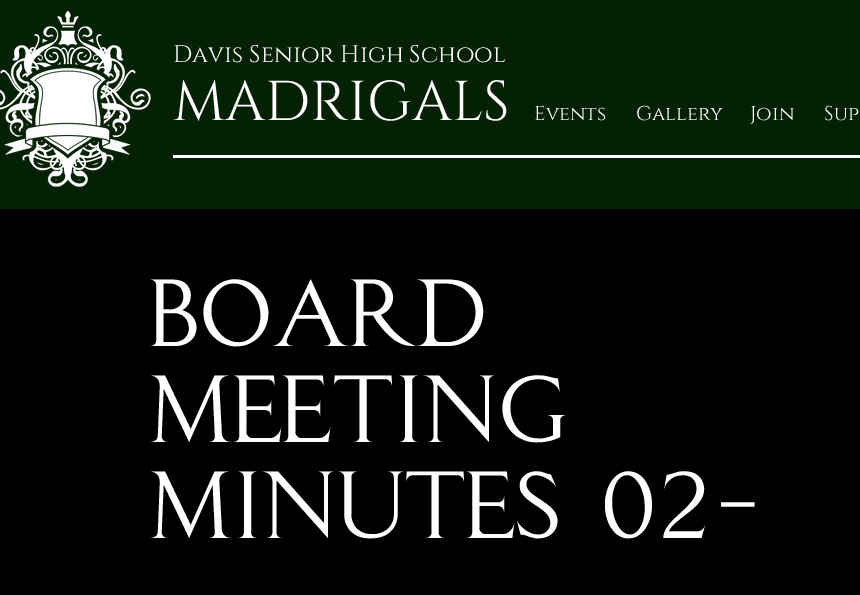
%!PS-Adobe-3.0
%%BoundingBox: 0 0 860 595
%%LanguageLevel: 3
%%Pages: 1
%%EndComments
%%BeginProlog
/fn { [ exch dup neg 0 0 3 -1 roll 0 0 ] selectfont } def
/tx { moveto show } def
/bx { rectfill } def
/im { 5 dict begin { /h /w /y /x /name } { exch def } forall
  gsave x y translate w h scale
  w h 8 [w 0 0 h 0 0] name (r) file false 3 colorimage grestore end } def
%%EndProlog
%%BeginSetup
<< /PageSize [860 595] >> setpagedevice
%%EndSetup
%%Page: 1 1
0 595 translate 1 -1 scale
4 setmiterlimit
0 setgray
0 0 860 595 bx
0.016 0.129 0.016 setrgbcolor
0 0 860 209 bx
(image0.raw) 0 10 155 177 im
/Cinzel-Regular 24 fn
1 setgray
(Davis Senior High School) 173 62 tx
/Cinzel-Regular 56 fn
(MADRIGALS) 173 120 tx
/Cinzel-Regular 20 fn
(Events) 534 120 tx
(Gallery) 636 120 tx
(Join) 750 120 tx
(Sup) 824 120 tx
173 155 687 3 bx
/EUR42-Regular 95 fn
(Board) 150 346 tx
(Meeting) 150 442 tx
(Minutes 02-) 150 538 tx
showpage
%%EOF
